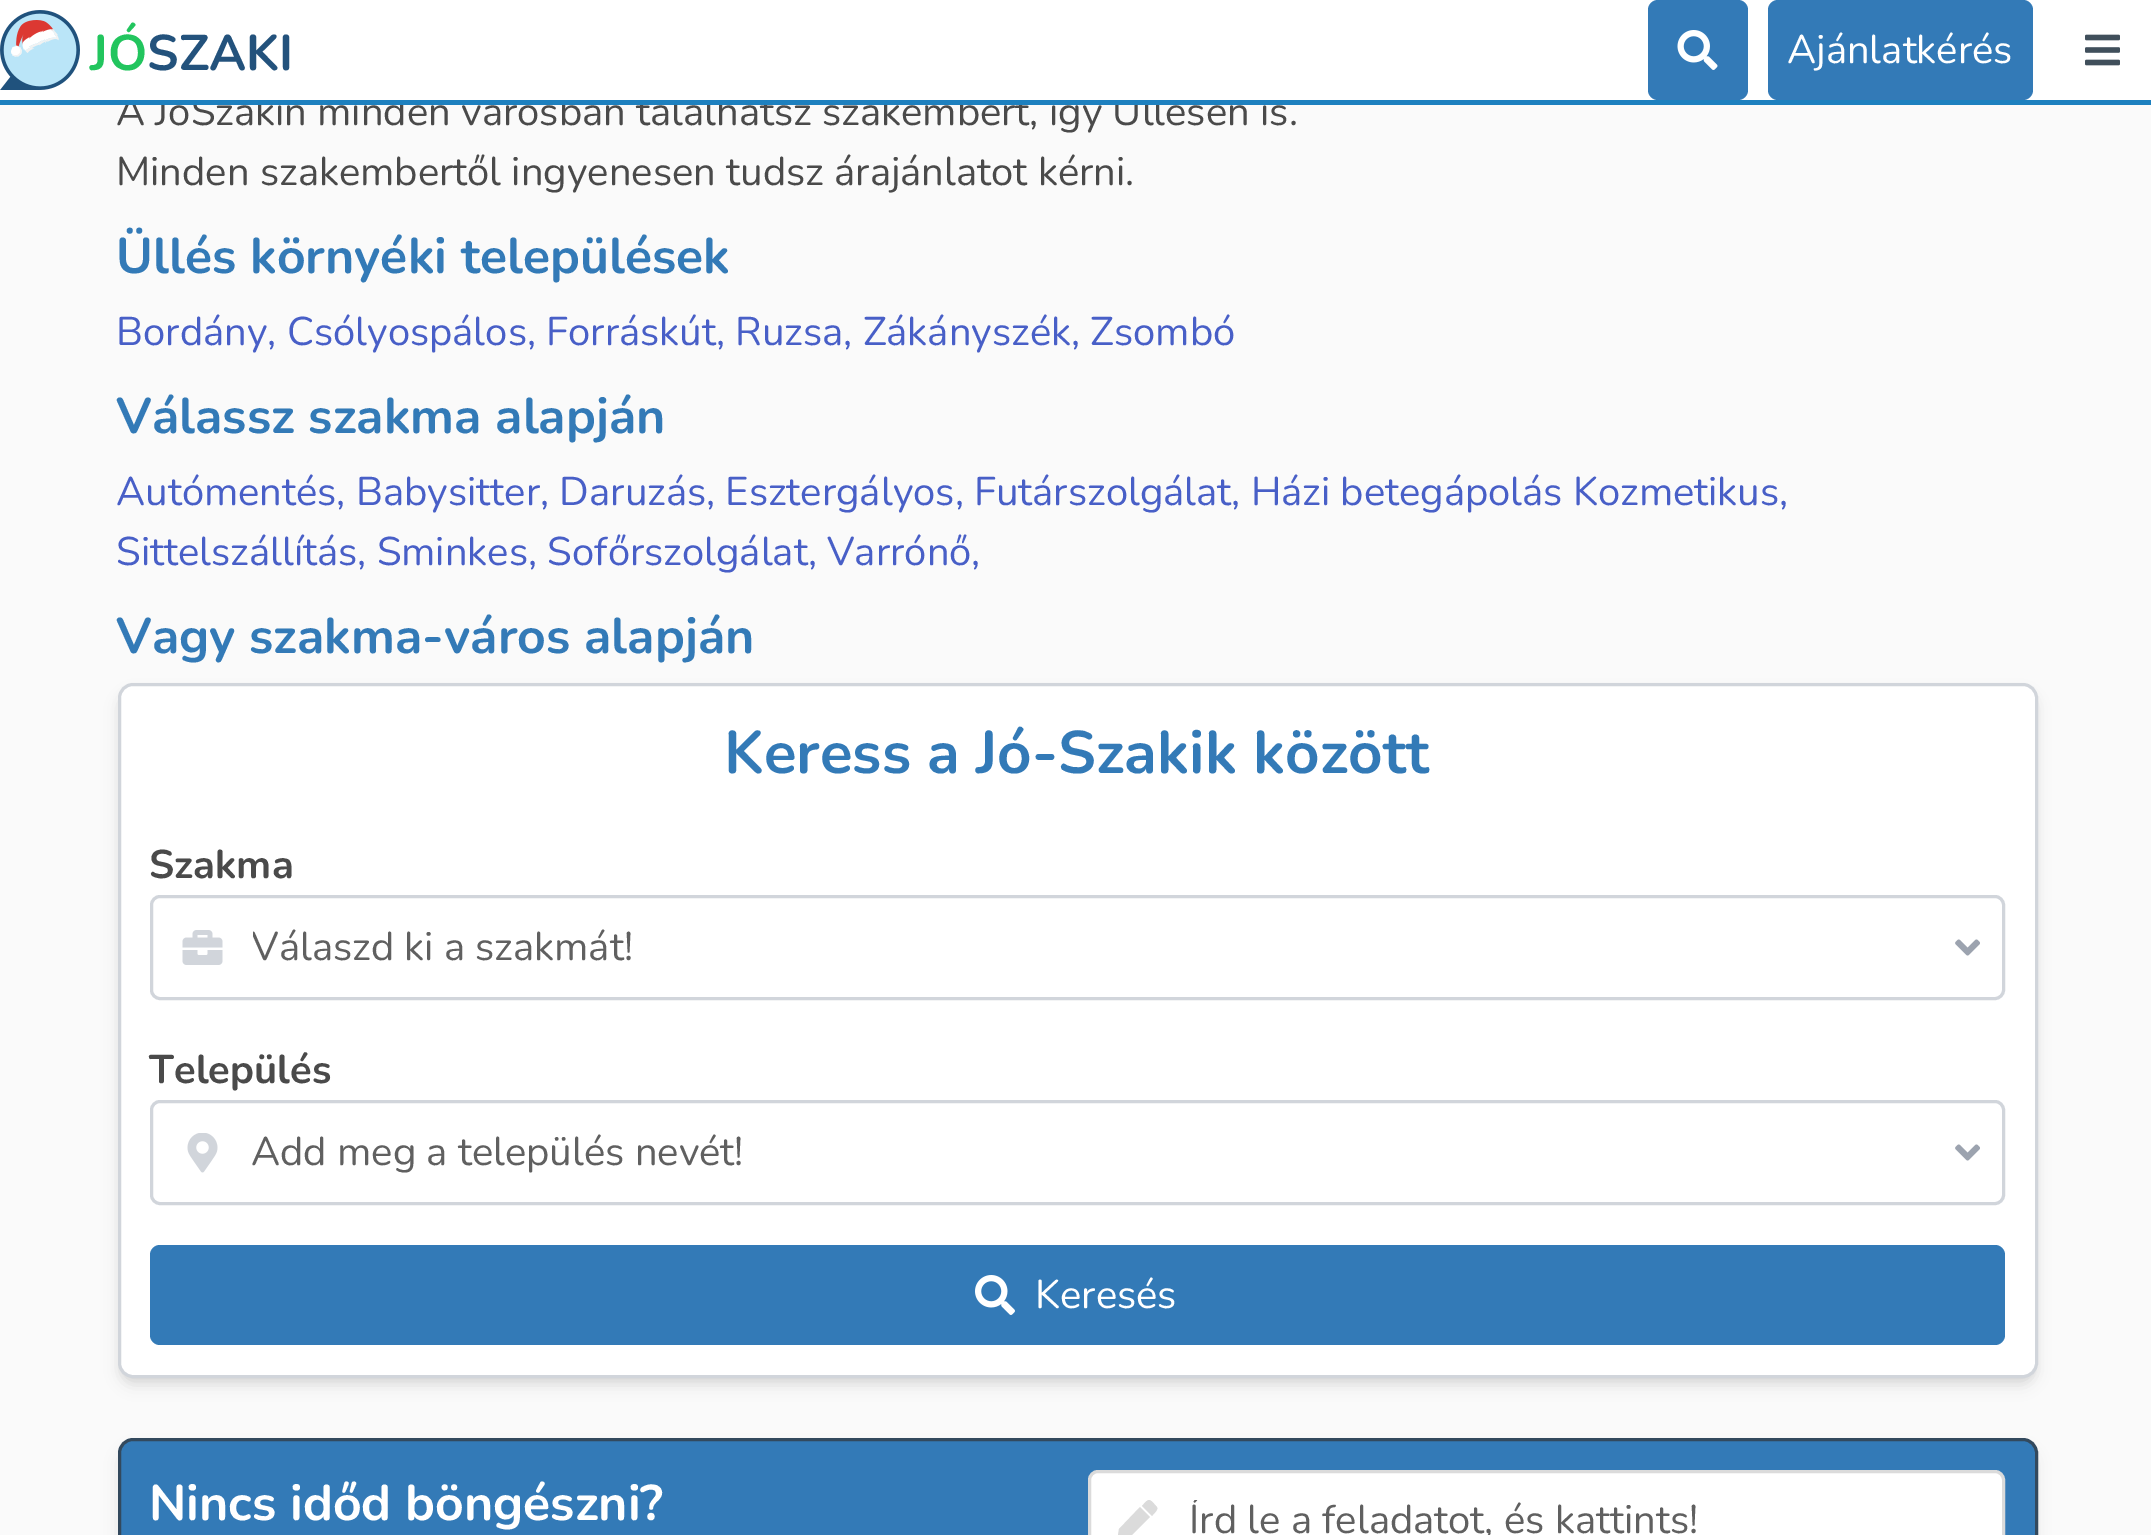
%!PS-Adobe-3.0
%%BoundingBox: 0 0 2151 1535
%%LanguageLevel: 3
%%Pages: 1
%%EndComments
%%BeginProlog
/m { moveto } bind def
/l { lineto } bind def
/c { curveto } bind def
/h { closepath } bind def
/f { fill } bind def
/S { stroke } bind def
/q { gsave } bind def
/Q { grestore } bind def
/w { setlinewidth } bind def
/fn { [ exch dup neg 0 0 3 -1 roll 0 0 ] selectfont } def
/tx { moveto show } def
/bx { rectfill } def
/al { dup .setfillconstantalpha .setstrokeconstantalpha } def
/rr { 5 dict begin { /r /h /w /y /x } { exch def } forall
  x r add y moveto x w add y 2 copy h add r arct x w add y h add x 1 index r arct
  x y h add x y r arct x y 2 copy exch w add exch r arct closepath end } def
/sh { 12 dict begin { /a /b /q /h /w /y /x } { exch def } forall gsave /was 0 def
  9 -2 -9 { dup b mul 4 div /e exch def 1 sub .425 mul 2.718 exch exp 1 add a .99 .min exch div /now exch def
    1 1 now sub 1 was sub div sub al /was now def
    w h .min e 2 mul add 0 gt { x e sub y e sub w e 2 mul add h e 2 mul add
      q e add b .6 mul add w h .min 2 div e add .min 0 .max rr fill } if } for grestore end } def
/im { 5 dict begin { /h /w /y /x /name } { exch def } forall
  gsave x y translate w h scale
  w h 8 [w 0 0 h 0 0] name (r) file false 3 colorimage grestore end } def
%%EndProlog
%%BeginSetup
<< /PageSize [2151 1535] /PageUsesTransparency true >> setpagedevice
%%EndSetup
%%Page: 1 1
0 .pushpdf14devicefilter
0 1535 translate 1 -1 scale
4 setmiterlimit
0.98 setgray
0 0 2151 1535 bx
/Nunito-Regular 40 fn
0.29 setgray
(A JóSzakin minden városban találhatsz szakembert, így Üllésen is.) 116 125 tx
1 setgray
0 0 2151 100 bx
0.114 0.502 0.749 setrgbcolor
0 100 2151 5 bx
(image0.raw) 0 10 80 80 im
/Nunito-Bold 50 fn
0.133 0.773 0.369 setrgbcolor
(JÓ) 90 70 tx
0.137 0.322 0.486 setrgbcolor
(SZAKI) 147 70 tx
0.2 0.478 0.718 setrgbcolor
1648 0 100 100 10 rr f
(image1.raw) 1677 30 41 40 im
1768 0 265 100 10 rr f
/Nunito-Regular 40 fn
1 setgray
(Ajánlatkérés) 1787 63 tx
(image2.raw) 2085 34 35 32 im
0.29 setgray
(Minden szakembertől ingyenesen tudsz árajánlatot kérni.) 116 185 tx
/Nunito-Bold 50 fn
0.2 0.478 0.718 setrgbcolor
(Üllés környéki települések) 116 273 tx
/Nunito-Regular 40 fn
0.282 0.373 0.78 setrgbcolor
(Bordány, Csólyospálos, Forráskút, Ruzsa, Zákányszék, Zsombó) 116 345 tx
/Nunito-Bold 50 fn
0.2 0.478 0.718 setrgbcolor
(Válassz szakma alapján) 116 433 tx
/Nunito-Regular 40 fn
0.282 0.373 0.78 setrgbcolor
(Autómentés, Babysitter, Daruzás, Esztergályos, Futárszolgálat, Házi betegápolás Kozmetikus,) 116 505 tx
(Sittelszállítás, Sminkes, Sofőrszolgálat, Varrónő,) 116 565 tx
/Nunito-Bold 50 fn
0.2 0.478 0.718 setrgbcolor
(Vagy szakma-város alapján) 116 653 tx
0 setgray
123 693 1910 685 10 5 0.1 sh
120 695 1915 690 13 7.5 0.1 sh
1 setgray
119.5 684.5 1917 692 13.5 rr q f Q
0.82 0.835 0.859 setrgbcolor
3 w
S
/Nunito-Bold 60 fn
0.2 0.478 0.718 setrgbcolor
(Keress a Jó-Szakik között) 724 773 tx
/Nunito-Bold 40 fn
0.29 setgray
(Szakma) 149 878 tx
0.82 0.835 0.859 setrgbcolor
151.5 896.5 1852 102 8.5 rr S
(image3.raw) 182 930 41 35 im
q
253 928 1682 40 rectclip
/Nunito-Regular 40 fn
0.376 setgray
(Válaszd ki a szakmát!) 251 960 tx
Q
(image4.raw) 1955 939 25 17 im
0.29 setgray
(Település) 149 1083 tx
0.82 0.835 0.859 setrgbcolor
151.5 1101.5 1852 102 8.5 rr S
(image5.raw) 187 1133 31 40 im
/Nunito-Regular 40 fn
0.376 setgray
(Add meg a település nevét!) 251 1165 tx
(image4.raw) 1955 1144 25 17 im
0.2 0.478 0.718 setrgbcolor
150 1245 1855 100 10 rr f
(image6.raw) 975 1275 40 40 im
1 setgray
(Keresés) 1035 1308 tx
0 setgray
120 1450 1915 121 13 7.5 0.1 sh
0.2 0.478 0.718 setrgbcolor
119.5 1439.5 1917 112 13.5 rr q f Q
0.2 0.286 0.365 setrgbcolor
S
/Nunito-Bold 50 fn
1 setgray
(Nincs időd böngészni?) 149 1520 tx
1089.5 1471.5 914 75 8.5 rr q f Q
0.859 setgray
S
1140 1507 m 1150 1517 l 1128 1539 l 1116 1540 1117 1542 1119 1529 c h 1156 1506 m 1149 1498 1149 1498 1142 1506 c 1152 1516 l 1154 1513 1160 1509 1156 1506 c h f
q
1190 1500 785 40 rectclip
/Nunito-Regular 40 fn
0.376 setgray
(Írd le a feladatot, és kattints!) 1189 1533 tx
Q
.poppdf14devicefilter showpage
%%EOF
